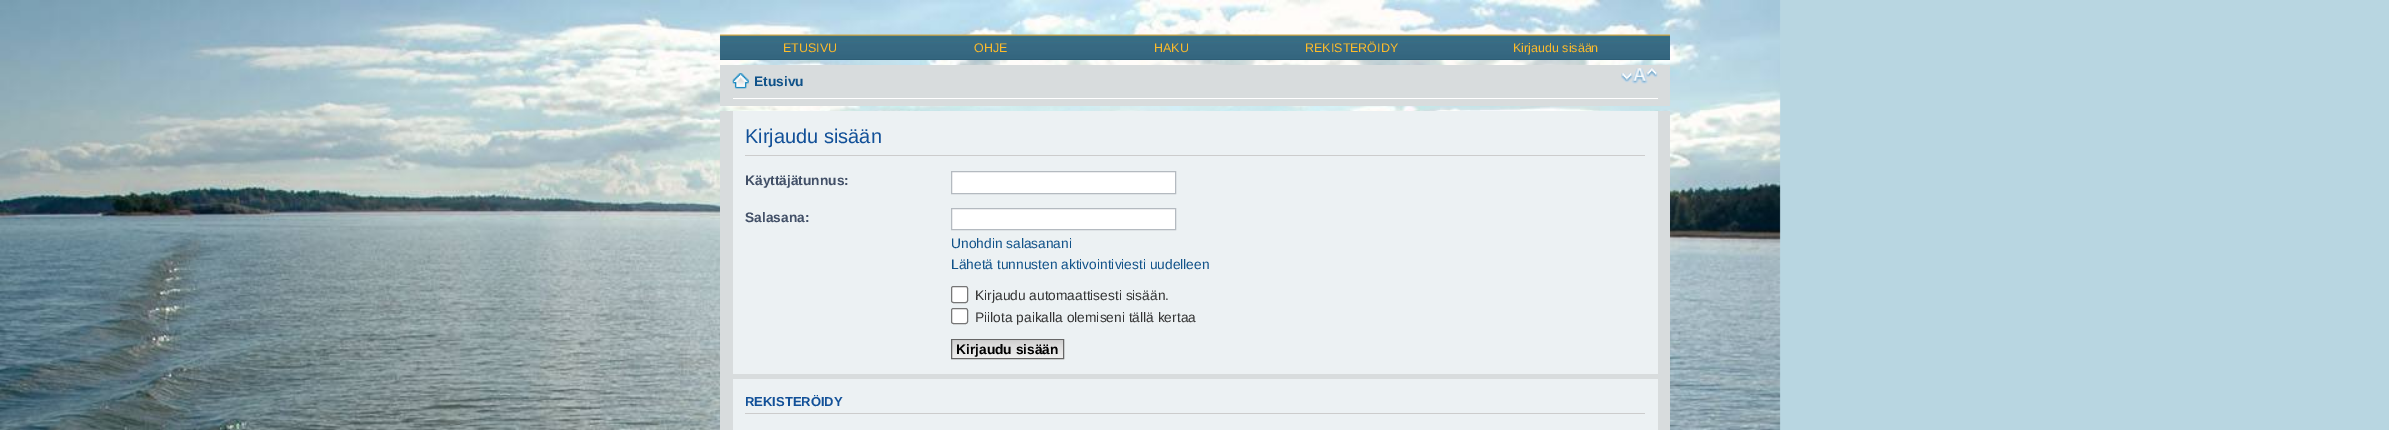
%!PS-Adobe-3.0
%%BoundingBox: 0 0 2389 430
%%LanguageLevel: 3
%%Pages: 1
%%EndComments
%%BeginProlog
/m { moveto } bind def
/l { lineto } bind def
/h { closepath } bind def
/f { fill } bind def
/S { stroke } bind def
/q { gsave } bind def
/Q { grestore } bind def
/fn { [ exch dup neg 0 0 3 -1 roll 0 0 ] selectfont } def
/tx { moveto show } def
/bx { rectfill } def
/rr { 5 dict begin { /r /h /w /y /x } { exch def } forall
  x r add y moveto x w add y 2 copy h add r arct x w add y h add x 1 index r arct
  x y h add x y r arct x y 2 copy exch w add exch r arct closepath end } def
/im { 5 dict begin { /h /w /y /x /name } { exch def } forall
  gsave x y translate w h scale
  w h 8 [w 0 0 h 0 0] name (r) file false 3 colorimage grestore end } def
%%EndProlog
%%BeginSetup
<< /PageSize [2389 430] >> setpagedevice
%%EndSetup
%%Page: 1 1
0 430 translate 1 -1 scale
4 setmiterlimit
0.722 0.839 0.882 setrgbcolor
0 0 2389 430 bx
(image0.raw) 0 0 1781 430 im
0.145 0.325 0.416 setrgbcolor
720 59 950 1 bx
(image1.raw) 720 34 950 26 im
/LiberationSans-Regular 12.5 fn
0.988 0.733 0.169 setrgbcolor
(ETUSIVU) 783 52 tx
(OHJE) 974 52 tx
(HAKU) 1154 52 tx
(REKISTERÖIDY) 1305 52 tx
(Kirjaudu sisään) 1513 52 tx
0.847 0.863 0.867 setrgbcolor
720 65 950 41 bx
1 setgray
733 98 925 1 bx
(image2.raw) 732 73 17 16 im
/LiberationSans-Bold 13.75 fn
0.063 0.322 0.537 setrgbcolor
(Etusivu) 754 86 tx
(image3.raw) 1621 68 37 16 im
0.847 0.863 0.867 setrgbcolor
720 111 950 319 bx
0.925 0.945 0.953 setrgbcolor
733 111 925 263 bx
0.8 setgray
745 155 900 1 bx
/LiberationSans-Regular 20 fn
0.067 0.314 0.596 setrgbcolor
(Kirjaudu sisään) 745 143 tx
/LiberationSans-Bold 13.75 fn
0.259 0.314 0.404 setrgbcolor
(Käyttäjätunnus:) 745 185 tx
1 setgray
951.5 171.5 m 1175.5 171.5 l 1175.5 193.5 l 951.5 193.5 l h q f Q
0.706 0.729 0.753 setrgbcolor
S
0.259 0.314 0.404 setrgbcolor
(Salasana:) 745 222 tx
1 setgray
951.5 208.5 m 1175.5 208.5 l 1175.5 229.5 l 951.5 229.5 l h q f Q
0.706 0.729 0.753 setrgbcolor
S
/LiberationSans-Regular 13.75 fn
0.063 0.322 0.537 setrgbcolor
(Unohdin salasanani) 951 248 tx
(Lähetä tunnusten aktivointiviesti uudelleen) 951 269 tx
1 setgray
951.5 286.5 16 16 2 rr q f Q
0.463 setgray
S
0.2 setgray
(Kirjaudu automaattisesti sisään.) 975 300 tx
1 setgray
951.5 308.5 16 15 2 rr q f Q
0.463 setgray
S
0.2 setgray
(Piilota paikalla olemiseni tällä kertaa) 975 322 tx
(image4.raw) 952 340 111 18 im
0.4 setgray
951.5 339.5 112 19 rectstroke
/LiberationSans-Bold 13.75 fn
0 setgray
(Kirjaudu sisään) 956 354 tx
0.925 0.945 0.953 setrgbcolor
733 379 925 51 bx
0.8 setgray
745 413 900 1 bx
/LiberationSans-Bold 13 fn
0.067 0.314 0.596 setrgbcolor
(REKISTERÖIDY) 745 406 tx
showpage
%%EOF
